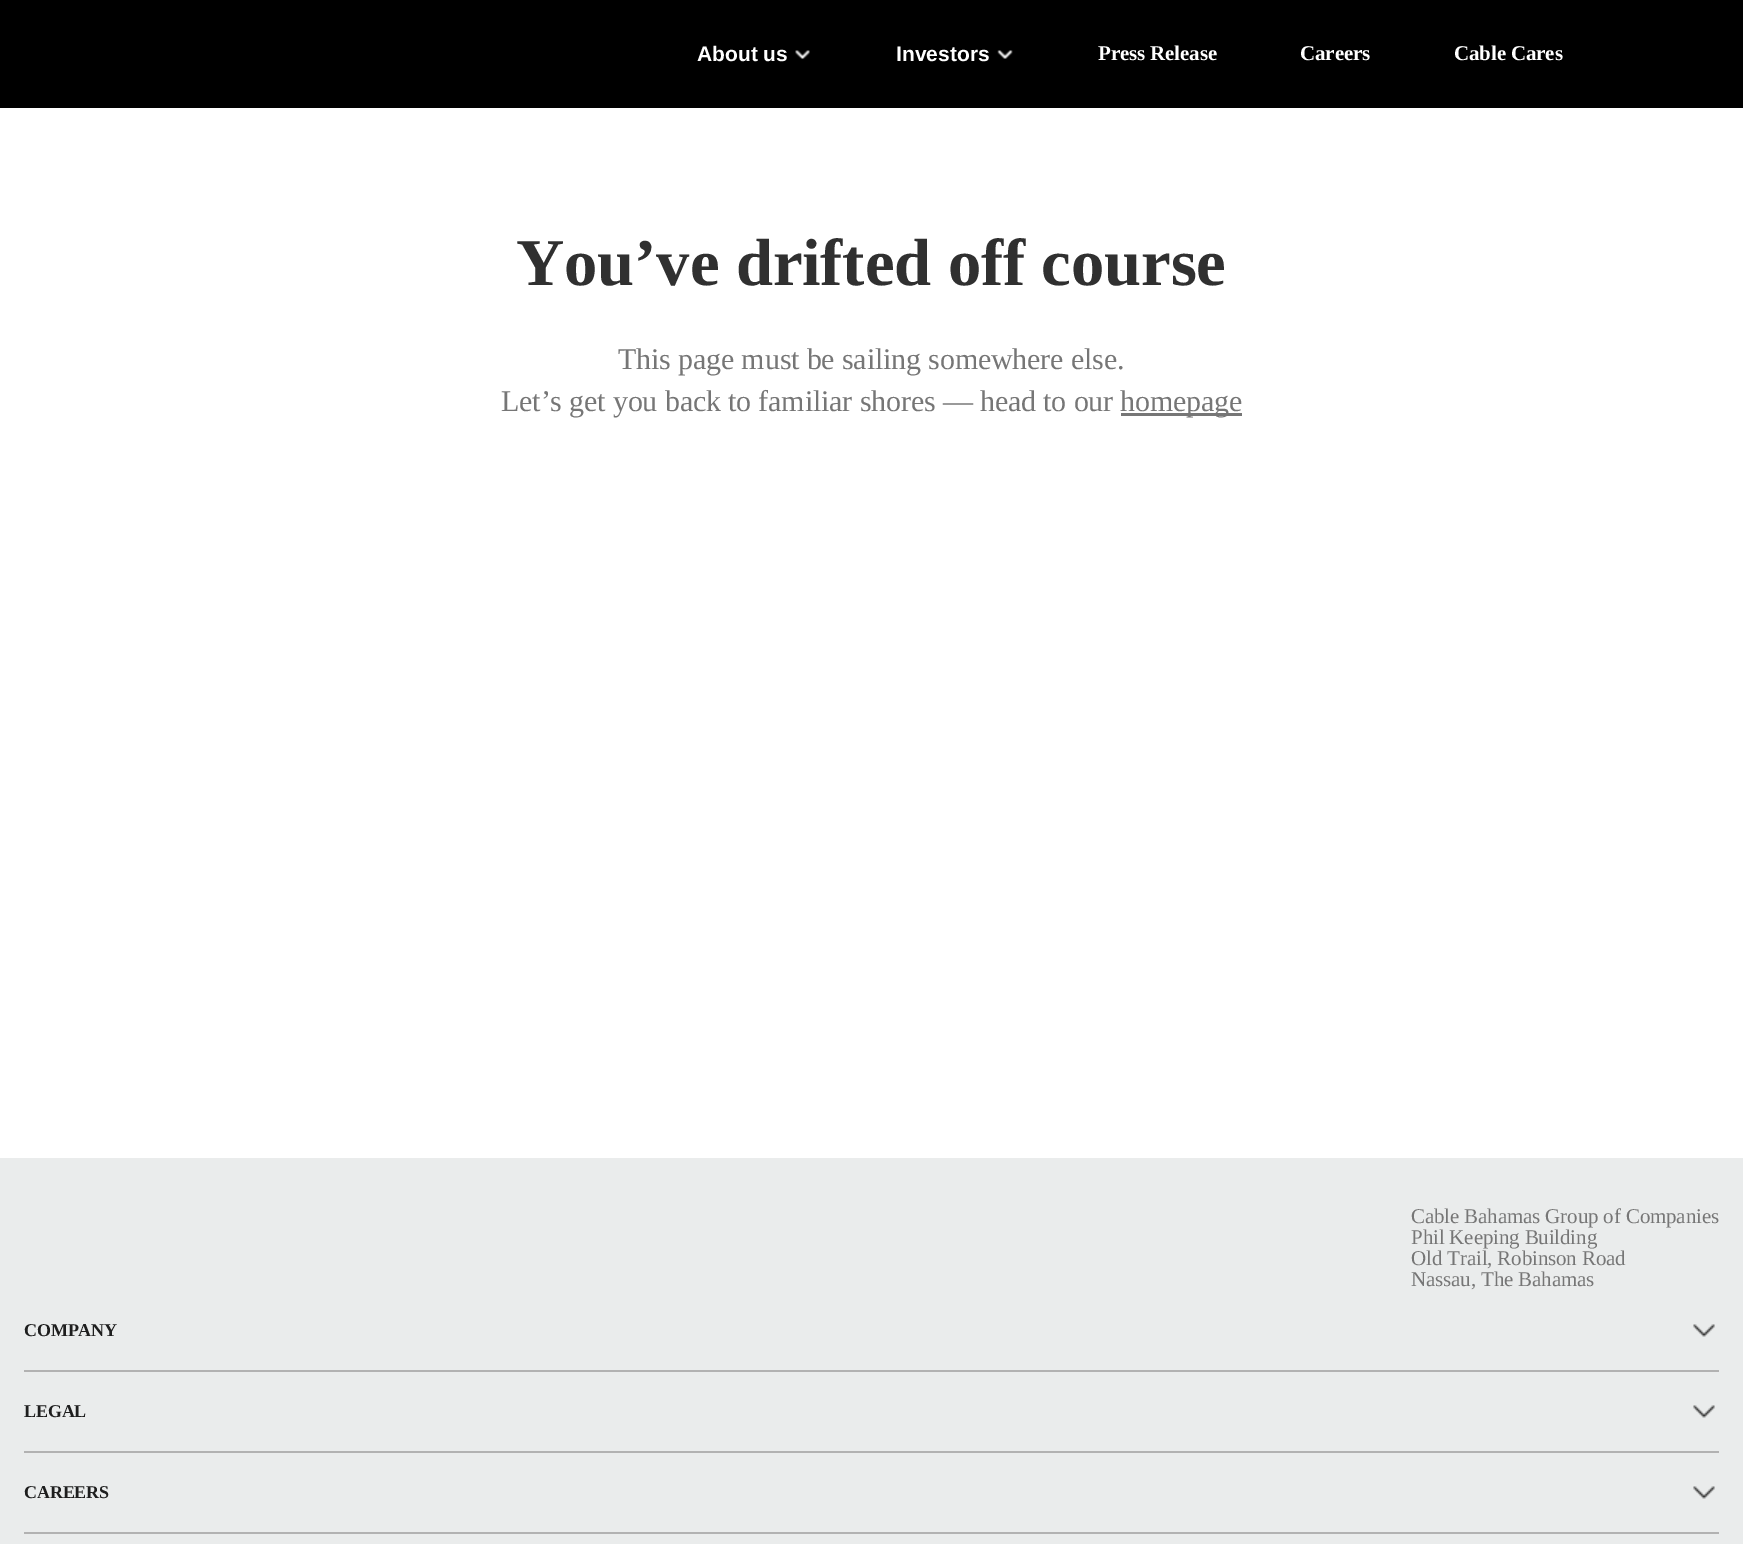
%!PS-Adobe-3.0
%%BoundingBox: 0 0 1743 1544
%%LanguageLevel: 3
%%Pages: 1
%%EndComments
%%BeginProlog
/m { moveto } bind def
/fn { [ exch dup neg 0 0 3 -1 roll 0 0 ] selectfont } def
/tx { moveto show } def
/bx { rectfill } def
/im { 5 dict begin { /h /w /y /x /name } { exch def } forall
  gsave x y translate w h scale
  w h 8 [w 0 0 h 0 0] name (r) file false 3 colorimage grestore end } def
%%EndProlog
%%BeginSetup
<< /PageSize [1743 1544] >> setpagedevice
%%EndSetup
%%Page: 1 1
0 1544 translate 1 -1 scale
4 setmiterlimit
1 setgray
0 0 1743 1544 bx
0 setgray
0 0 1743 108 bx
/LiberationSans-Bold 21 fn
1 setgray
(About us) 697 61 tx
(image0.raw) 795 50 15 10 im
(Investors) 896 61 tx
(image1.raw) 997 50 16 9 im
/LiberationSerif-Bold 21 fn
1098 60 m -0.15 0 (Press Release) ashow
1300 60 m -0.15 0 (Careers) ashow
1454 60 m -0.15 0 (Cable Cares) ashow
/LiberationSerif-Bold 66.75 fn
0.188 setgray
516 285 m -0.15 0 (You’ve drifted off course) ashow
/LiberationSerif-Regular 30 fn
0.463 setgray
618 369 m -0.15 0 (This page must be sailing somewhere else.) ashow
501 411 m -0.15 0 (Let’s get you back to familiar shores — head to our) ashow
1121 413 121 3 bx
1120 411 m -0.15 0 (homepage) ashow
0.918 0.925 0.925 setrgbcolor
0 1158 1743 386 bx
/LiberationSerif-Regular 21 fn
0.463 setgray
1411 1223 m -0.15 0 (Cable Bahamas Group of Companies) ashow
1411 1244 m -0.15 0 (Phil Keeping Building) ashow
1411 1265 m -0.15 0 (Old Trail, Robinson Road) ashow
1411 1286 m -0.15 0 (Nassau, The Bahamas) ashow
0.698 setgray
24 1370 1695 2 bx
/LiberationSerif-Bold 18 fn
0.118 setgray
24 1336 m -0.15 0 (COMPANY) ashow
(image2.raw) 1693 1324 22 13 im
0.698 setgray
24 1451 1695 2 bx
0.118 setgray
24 1417 m -0.15 0 (LEGAL) ashow
(image2.raw) 1693 1405 22 13 im
0.698 setgray
24 1532 1695 2 bx
0.118 setgray
24 1498 m -0.15 0 (CAREERS) ashow
(image2.raw) 1693 1486 22 13 im
showpage
%%EOF
